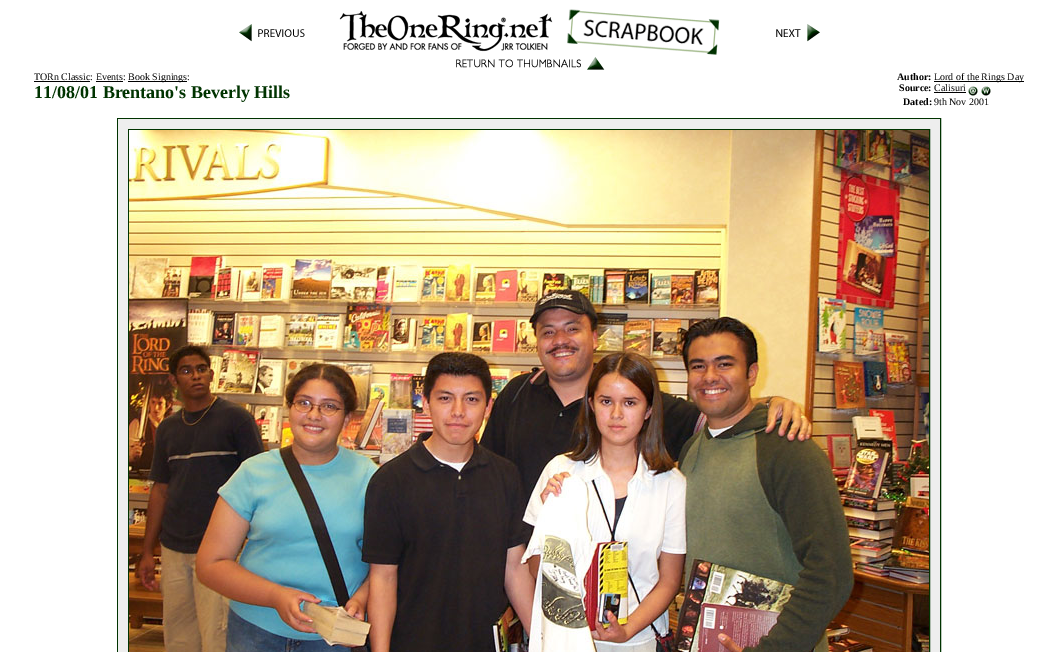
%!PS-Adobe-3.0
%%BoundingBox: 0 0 1058 652
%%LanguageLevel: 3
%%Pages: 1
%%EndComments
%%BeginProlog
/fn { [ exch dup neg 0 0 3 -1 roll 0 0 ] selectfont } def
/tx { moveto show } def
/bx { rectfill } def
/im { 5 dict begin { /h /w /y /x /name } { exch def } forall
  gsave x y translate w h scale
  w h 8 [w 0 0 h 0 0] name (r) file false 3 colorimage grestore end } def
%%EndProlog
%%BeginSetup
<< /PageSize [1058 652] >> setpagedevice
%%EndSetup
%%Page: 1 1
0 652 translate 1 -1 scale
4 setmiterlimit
1 setgray
0 0 1058 652 bx
(image0.raw) 239 24 66 18 im
(image1.raw) 339 9 381 46 im
(image2.raw) 776 24 44 18 im
(image3.raw) 456 57 149 13 im
/LiberationSerif-Regular 10 fn
0 setgray
(TORn Classic: Events:) 34 80 tx
34 81 56 1 bx
96 81 27 1 bx
128 81 59 1 bx
(Book Signings:) 128 80 tx
/LiberationSerif-Bold 18 fn
0 0.2 0 setrgbcolor
(11/08/01 Brentano's Beverly Hills) 34 98 tx
/LiberationSerif-Bold 10 fn
0 setgray
(Author:) 897 80 tx
934 81 90 1 bx
/LiberationSerif-Regular 10 fn
(Lord of the Rings Day) 934 80 tx
/LiberationSerif-Bold 10 fn
(Source:) 899 91 tx
/LiberationSerif-Regular 10 fn
(Calisuri) 934 91 tx
934 92 32 1 bx
(image4.raw) 968 86 10 10 im
(image5.raw) 981 86 10 10 im
/LiberationSerif-Bold 10 fn
(Dated:) 903 105 tx
/LiberationSerif-Regular 10 fn
(9th Nov 2001) 934 105 tx
0 0.2 0 setrgbcolor
117.5 118.5 823 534 rectstroke
0.933 setgray
118 119 822 533 bx
0 0.2 0 setrgbcolor
128.5 129.5 801 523 rectstroke
(image6.raw) 129 130 800 522 im
showpage
%%EOF
